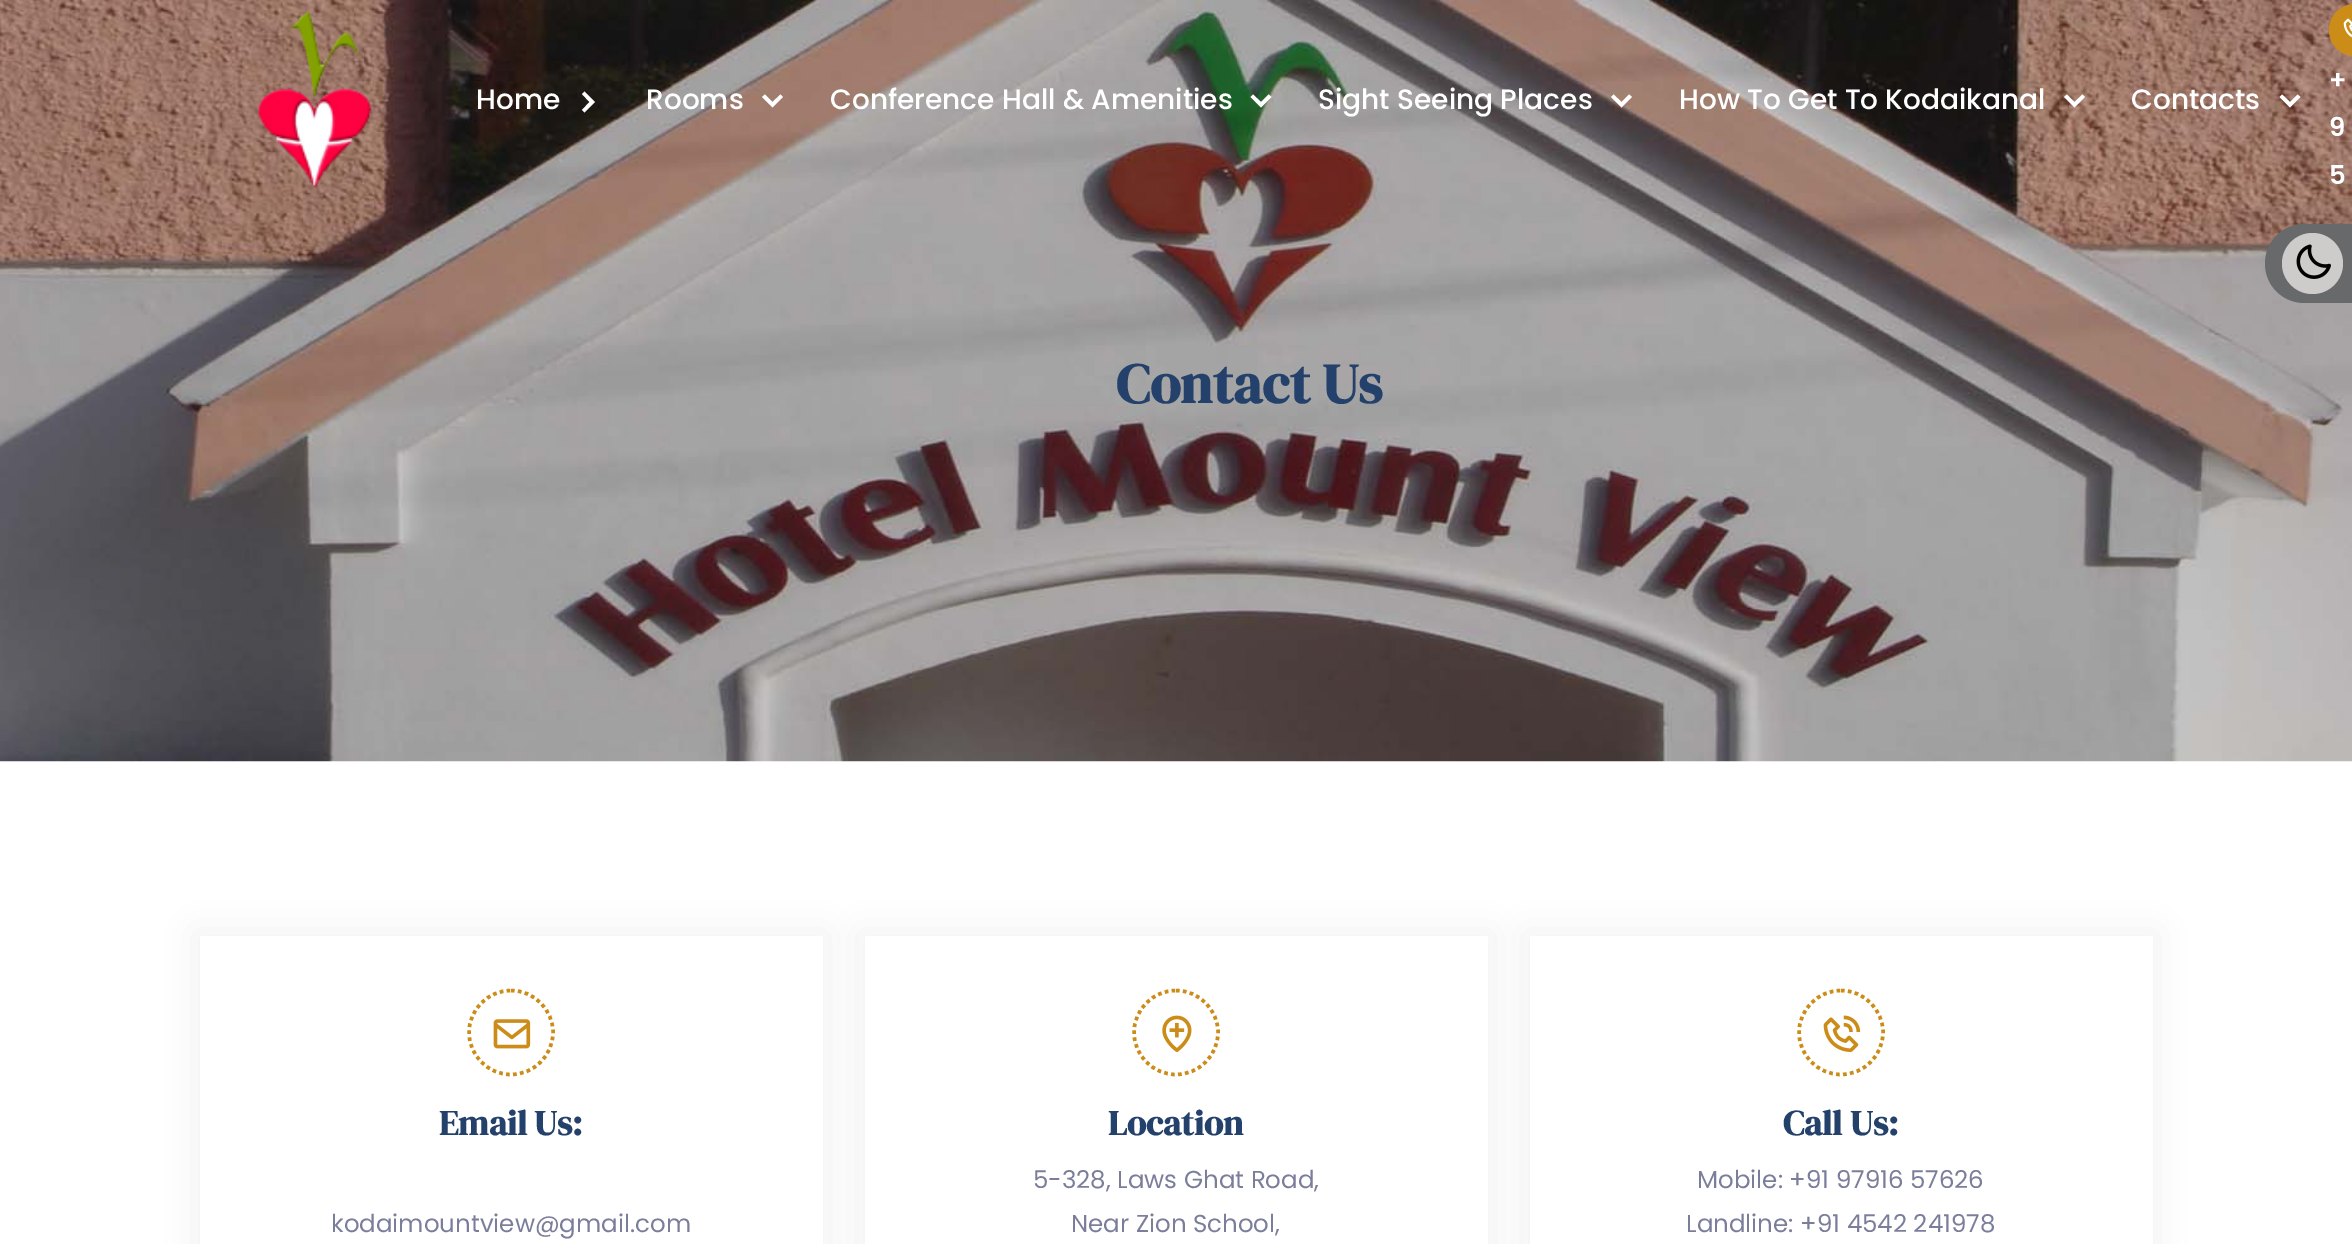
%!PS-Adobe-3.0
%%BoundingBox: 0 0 2352 1244
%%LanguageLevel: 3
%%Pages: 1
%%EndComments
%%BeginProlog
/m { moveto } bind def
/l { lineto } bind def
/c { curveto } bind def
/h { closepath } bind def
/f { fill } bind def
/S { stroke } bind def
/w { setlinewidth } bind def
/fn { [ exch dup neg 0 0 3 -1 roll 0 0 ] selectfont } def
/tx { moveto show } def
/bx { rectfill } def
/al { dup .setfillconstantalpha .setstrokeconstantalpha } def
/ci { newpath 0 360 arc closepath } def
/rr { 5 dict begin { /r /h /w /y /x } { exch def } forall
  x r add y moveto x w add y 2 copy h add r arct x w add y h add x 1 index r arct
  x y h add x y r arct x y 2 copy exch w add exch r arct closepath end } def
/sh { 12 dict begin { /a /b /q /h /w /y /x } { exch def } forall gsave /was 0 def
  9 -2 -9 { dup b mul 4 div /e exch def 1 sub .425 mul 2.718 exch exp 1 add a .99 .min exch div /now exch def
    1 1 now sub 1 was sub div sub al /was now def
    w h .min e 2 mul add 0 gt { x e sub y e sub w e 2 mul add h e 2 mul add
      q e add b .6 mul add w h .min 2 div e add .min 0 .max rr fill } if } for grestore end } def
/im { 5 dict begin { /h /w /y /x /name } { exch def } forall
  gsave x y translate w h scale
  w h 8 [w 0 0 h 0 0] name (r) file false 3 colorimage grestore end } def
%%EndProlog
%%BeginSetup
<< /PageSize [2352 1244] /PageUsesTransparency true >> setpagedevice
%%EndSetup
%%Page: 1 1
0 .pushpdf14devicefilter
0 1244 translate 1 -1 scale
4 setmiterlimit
1 setgray
0 0 2352 1244 bx
(image3.raw) 0 0 2352 762 im
(image0.raw) 258 11 114 179 im
/Poppins-Medium 28 fn
(Home) 476 109 tx
582 94 m 589.5 102 l 582 110 l 584.5 112.5 l 595 102 l 584.5 91.5 l h f
(Rooms) 646 109 tx
780.5 94.5 m 772.5 102 l 765 94.5 l 762 97 l 772.5 107.5 l 783 97 l h f
(Conference Hall & Amenities) 830 109 tx
1268.5 94.5 m 1261 102 l 1253 94.5 l 1250.5 97 l 1261 107.5 l 1271.5 97 l h f
(Sight Seeing Places) 1318 109 tx
1629 94.5 m 1621.5 102 l 1613.5 94.5 l 1611 97 l 1621.5 107.5 l 1632 97 l h f
(How To Get To Kodaikanal) 1679 109 tx
2082.5 94.5 m 2074.5 102 l 2067 94.5 l 2064 97 l 2074.5 107.5 l 2085 97 l h f
(Contacts) 2131 109 tx
2297.5 94.5 m 2290 102 l 2282 94.5 l 2279.5 97 l 2290 107.5 l 2300.5 97 l h f
0.8 0.549 0.094 setrgbcolor
2329 4 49 52 26 rr f
(image1.raw) 2343 18 9 20 im
/Poppins-SemiBold 26 fn
1 setgray
(+) 2329 89 tx
(9) 2329 136 tx
(5) 2329 184 tx
0.404 0.412 0.42 setrgbcolor
2304.5 224 m 2352 224 l 2352 303 l 2304.5 303 l 2282.5 303 2265 285.5 2265 263.5 c 2265 241.5 2282.5 224 2304.5 224 c h f
0.808 0.796 0.796 setrgbcolor
2312.5 263.5 30.5 ci f
(image2.raw) 2296 244 35 35 im
/DMSerifDisplay-Bold 56 fn
0.141 0.255 0.42 setrgbcolor
(Contact Us) 1116 403 tx
0 setgray
194 931 634 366 0 17.5 0.05 sh
1 setgray
200 936 623 308 bx
0.8 0.549 0.094 setrgbcolor
3.5 w
[3.5 3.5] 0 setdash
511 990.5 m 534 990.5 553 1009.5 553 1032.5 c 553 1055.5 534 1074.5 511 1074.5 c 488 1074.5 469 1055.5 469 1032.5 c 469 1009.5 488 990.5 511 990.5 c h S
(image4.raw) 493 1019 38 30 im
/DMSerifDisplay-Bold 35 fn
0.141 0.255 0.42 setrgbcolor
(Email Us:) 439 1135 tx
/Poppins-Regular 24.5 fn
0.478 0.494 0.604 setrgbcolor
(kodaimountview@gmail.com) 331 1232 tx
0 setgray
859 931 634 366 0 17.5 0.05 sh
1 setgray
865 936 623 308 bx
0.8 0.549 0.094 setrgbcolor
1176 990.5 m 1199 990.5 1218 1009.5 1218 1032.5 c 1218 1055.5 1199 1074.5 1176 1074.5 c 1153 1074.5 1134 1055.5 1134 1032.5 c 1134 1009.5 1153 990.5 1176 990.5 c h S
(image5.raw) 1162 1015 30 37 im
/DMSerifDisplay-Bold 35 fn
0.141 0.255 0.42 setrgbcolor
(Location) 1108 1135 tx
/Poppins-Regular 24.5 fn
0.478 0.494 0.604 setrgbcolor
(5-328, Laws Ghat Road,) 1033 1188 tx
(Near Zion School,) 1071 1232 tx
0 setgray
1524 931 634 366 0 17.5 0.05 sh
1 setgray
1530 936 623 308 bx
0.8 0.549 0.094 setrgbcolor
1841 990.5 m 1864 990.5 1883 1009.5 1883 1032.5 c 1883 1055.5 1864 1074.5 1841 1074.5 c 1818 1074.5 1799 1055.5 1799 1032.5 c 1799 1009.5 1818 990.5 1841 990.5 c h S
(image6.raw) 1823 1015 38 38 im
/DMSerifDisplay-Bold 35 fn
0.141 0.255 0.42 setrgbcolor
(Call Us:) 1783 1135 tx
/Poppins-Regular 24.5 fn
0.478 0.494 0.604 setrgbcolor
(Mobile: +91 97916 57626) 1697 1188 tx
(Landline: +91 4542 241978) 1686 1232 tx
.poppdf14devicefilter showpage
%%EOF
